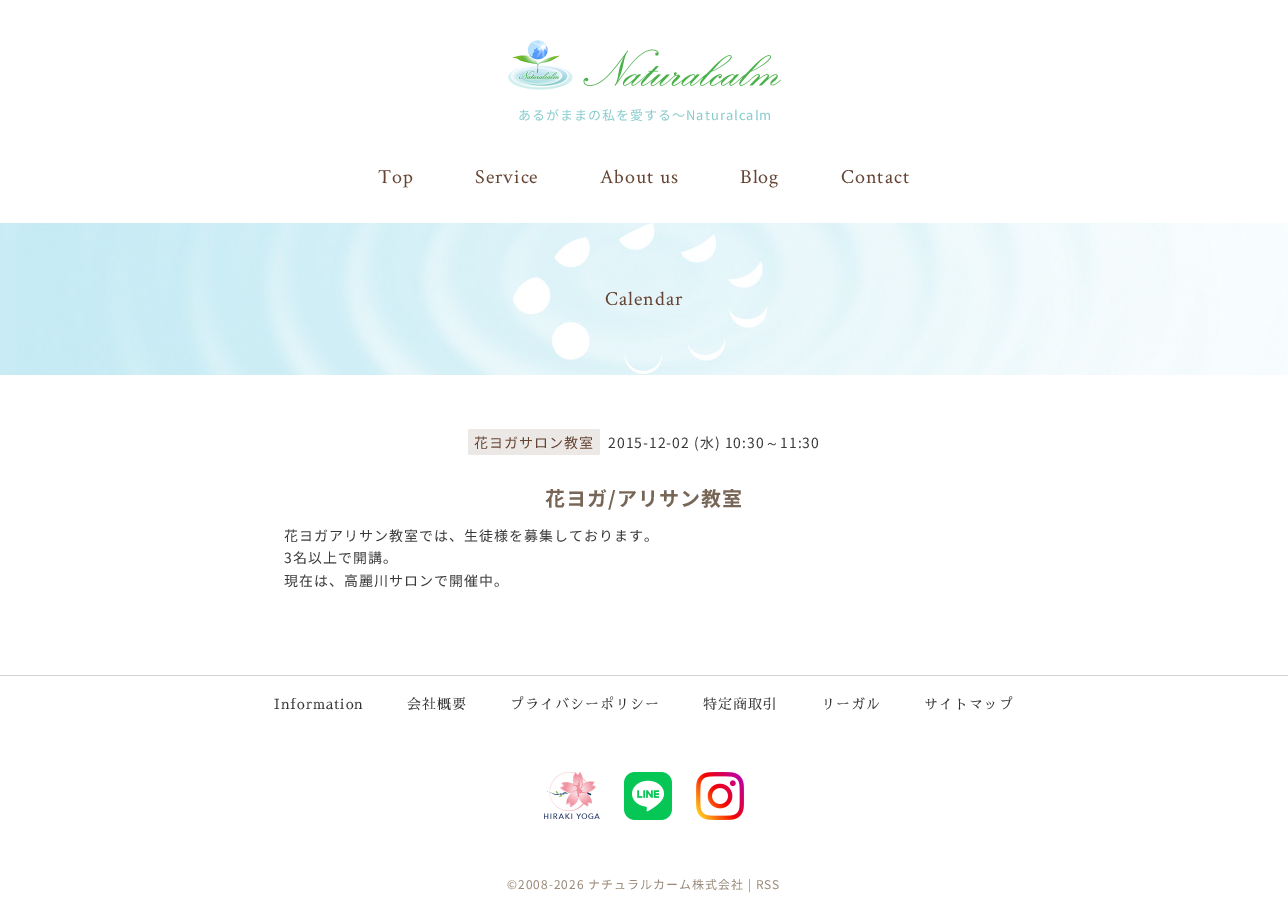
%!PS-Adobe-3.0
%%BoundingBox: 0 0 1288 913
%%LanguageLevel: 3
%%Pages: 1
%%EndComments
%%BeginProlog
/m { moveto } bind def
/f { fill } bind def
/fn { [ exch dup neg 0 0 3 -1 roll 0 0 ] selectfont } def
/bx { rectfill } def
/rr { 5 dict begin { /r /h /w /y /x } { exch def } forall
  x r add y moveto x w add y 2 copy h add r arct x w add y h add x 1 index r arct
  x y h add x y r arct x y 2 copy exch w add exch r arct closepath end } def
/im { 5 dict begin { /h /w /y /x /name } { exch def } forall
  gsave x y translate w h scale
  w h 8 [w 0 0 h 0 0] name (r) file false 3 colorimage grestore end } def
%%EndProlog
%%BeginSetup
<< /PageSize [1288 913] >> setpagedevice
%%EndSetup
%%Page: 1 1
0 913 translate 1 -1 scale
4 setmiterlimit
1 setgray
0 0 1288 913 bx
(image0.raw) 508 40 273 50 im
/NotoSansJP-Regular 13 fn
0.533 0.8 0.8 setrgbcolor
518 120 m 1 0 (あるがままの私を愛する〜Naturalcalm) ashow
/CrimsonText-Regular 20 fn
0.4 0.267 0.2 setrgbcolor
378 183 m 1 0 (Top) ashow
475 183 m 1 0 (Service) ashow
600 183 m 1 0 (About us) ashow
740 183 m 1 0 (Blog) ashow
841 183 m 1 0 (Contact) ashow
(image1.raw) 0 223 1288 152 im
605 305 m 1 0 (Calendar) ashow
0.922 0.91 0.898 setrgbcolor
468 429 132 26 2 rr f
/NotoSansJP-Regular 14 fn
0.4 0.267 0.2 setrgbcolor
474 448 m 1 0 (花ヨガサロン教室) ashow
0.227 setgray
608 448 m 1 0 (2015-12-02 \(水\) 10:30) ashow
/WenQuanYiZenHei-Medium 14 fn
765 448 m 1 0 (～) ashow
/NotoSansJP-Regular 14 fn
780 448 m 1 0 (11:30) ashow
/NotoSansJP-Bold 20 fn
0.467 0.4 0.333 setrgbcolor
545 506 m 1 0 (花ヨガ/アリサン教室) ashow
/NotoSansJP-Regular 14 fn
0.227 setgray
284 541 m 1 0 (花ヨガアリサン教室では、生徒様を募集しております。) ashow
284 563 m 1 0 (3名以上で開講。) ashow
284 586 m 1 0 (現在は、高麗川サロンで開催中。) ashow
0.839 0.82 0.8 setrgbcolor
0 675 1288 1 bx
/SawarabiMincho-Regular 14 fn
0.2 setgray
274 709 m 1 0 (Information) ashow
407 709 m 1 0 (会社概要) ashow
510 709 m 1 0 (プライバシーポリシー) ashow
703 709 m 1 0 (特定商取引) ashow
821 709 m 1 0 (リーガル) ashow
924 709 m 1 0 (サイトマップ) ashow
(image2.raw) 544 772 56 47 im
(image3.raw) 624 772 48 48 im
(image4.raw) 696 772 48 48 im
/NotoSansJP-Regular 12 fn
0.6 0.533 0.467 setrgbcolor
507 889 m 1 0 (©2008-2026 ナチュラルカーム株式会社 | RSS) ashow
showpage
%%EOF
